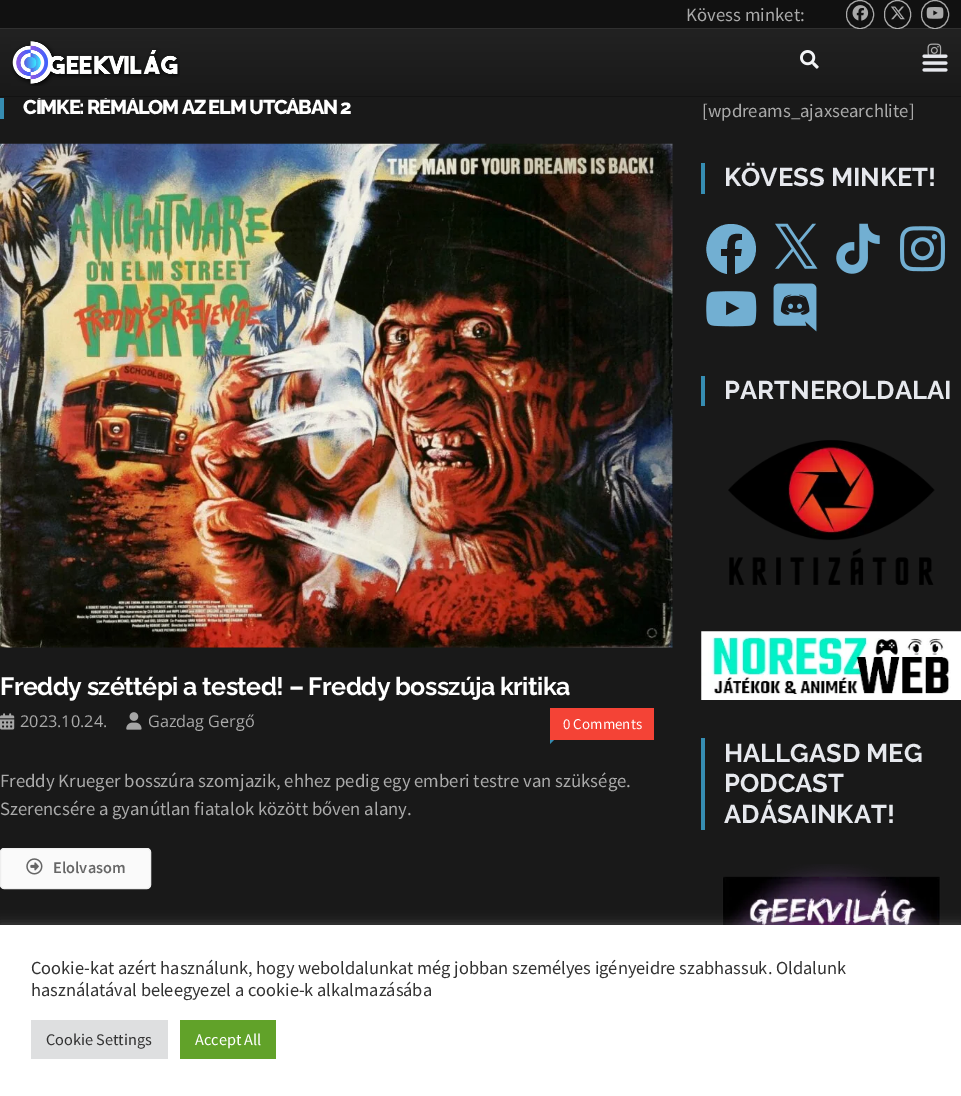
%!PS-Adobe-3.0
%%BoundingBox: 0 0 961 1096
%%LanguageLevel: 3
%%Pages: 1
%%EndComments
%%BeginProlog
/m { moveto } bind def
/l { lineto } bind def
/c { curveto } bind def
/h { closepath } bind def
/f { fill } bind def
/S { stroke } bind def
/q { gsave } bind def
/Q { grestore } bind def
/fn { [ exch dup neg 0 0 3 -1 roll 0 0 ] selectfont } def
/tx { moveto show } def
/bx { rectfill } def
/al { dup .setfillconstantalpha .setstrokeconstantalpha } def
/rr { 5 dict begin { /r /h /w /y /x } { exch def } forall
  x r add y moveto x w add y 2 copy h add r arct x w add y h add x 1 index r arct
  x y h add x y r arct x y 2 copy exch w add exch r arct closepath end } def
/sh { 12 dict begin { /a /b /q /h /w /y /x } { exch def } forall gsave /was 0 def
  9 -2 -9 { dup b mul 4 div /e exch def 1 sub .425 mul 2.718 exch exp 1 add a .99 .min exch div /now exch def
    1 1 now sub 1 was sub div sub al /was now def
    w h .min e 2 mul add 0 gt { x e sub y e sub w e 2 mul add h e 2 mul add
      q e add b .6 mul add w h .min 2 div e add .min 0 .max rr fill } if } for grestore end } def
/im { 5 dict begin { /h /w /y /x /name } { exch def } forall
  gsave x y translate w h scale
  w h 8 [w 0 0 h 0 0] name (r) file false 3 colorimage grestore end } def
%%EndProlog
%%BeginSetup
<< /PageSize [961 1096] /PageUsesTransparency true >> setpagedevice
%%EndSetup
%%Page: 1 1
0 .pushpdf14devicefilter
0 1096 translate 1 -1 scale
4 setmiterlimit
0.098 setgray
0 0 961 1096 bx
0.067 setgray
0 0 961 29 bx
/SourceSansPro-Regular 18.75 fn
0.667 setgray
(Kövess minket:) 686 21 tx
846.5 0.5 27 28 13.5 rr S
(image0.raw) 852 5 17 16 im
884.5 0.5 26 28 13 rr S
(image1.raw) 891 6 14 14 im
921.5 0.5 27 28 13.5 rr S
(image2.raw) 926 7 18 12 im
/Raleway-ExtraBold 20 fn
1 setgray
23 114 m -1.25 0 (CÍMKE: RÉMÁLOM AZ ELM UTCÁBAN 2) ashow
q 0 29 m 961 29 l 961 98 l 0 98 l h clip newpath
<< /ShadingType 2 /ColorSpace /DeviceRGB /Coords [481 29 481 98] /Extend [true true] /Function << /FunctionType 2 /Domain [0 1] /C0 [0.133 0.133 0.133] /C1 [0.098 0.098 0.098] /N 1 >> >> shfill Q
(image3.raw) 927 43 15 15 im
0.15 al
0.871 setgray
0 28 961 1 bx
1 al
0.071 setgray
0 96 961 1 bx
(image4.raw) 11 40 169 46 im
(image5.raw) 800 50 19 19 im
(image6.raw) 922 54 26 18 im
0.212 0.553 0.698 setrgbcolor
0 98 4 21 bx
(image7.raw) 0 143 673 505 im
/Raleway-Bold 25 fn
1 setgray
0 695 m -0.62 0 (Freddy széttépi a tested! – Freddy bosszúja kritika) ashow
(image8.raw) 0 713 15 17 im
/OpenSans-Regular 16.25 fn
0.667 setgray
(2023.10.24.) 20 727 tx
(image9.raw) 126 712 16 18 im
(Gazdag Gergő) 148 727 tx
0.957 0.263 0.212 setrgbcolor
550 708 104 32 bx
/SourceSansPro-Regular 15 fn
1 setgray
(0 Comments) 563 729 tx
0.212 0.553 0.698 setrgbcolor
550 740 m 554 740 l 550 744 l h f
/SourceSansPro-Regular 18.75 fn
0.667 setgray
(Freddy Krueger bosszúra szomjazik, ehhez pedig egy emberi testre van szüksége.) 0 787 tx
(Szerencsére a gyanútlan fiatalok között bőven alany.) 0 815 tx
0.98 setgray
0.5 848.5 150 40 3.5 rr q f Q
0.933 setgray
S
(image10.raw) 26 858 17 17 im
/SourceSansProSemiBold-SemiBold 16.25 fn
0.4 setgray
(Elolvasom) 53 873 tx
/SourceSansPro-Regular 18.75 fn
0.667 setgray
([wpdreams_ajaxsearchlite]) 702 117 tx
0.212 0.553 0.698 setrgbcolor
701 163 4 31 bx
/Raleway-Bold 25.6 fn
0.902 0.91 0.929 setrgbcolor
(KÖVESS MINKET!) 724 186 tx
0.447 0.686 0.824 setrgbcolor
731 224 m 701 224 697 268 727 274 c 727 256 l 721 256 l 721 249 l 727 249 l 727 237 729 232 742 234 c 742 240 l 735 240 735 242 735 249 c 742 249 l 741 256 l 735 256 l 735 274 l 765 268 762 224 731 224 c h f
(image11.raw) 775 223 43 46 im
(image12.raw) 836 223 44 51 im
(image13.raw) 900 226 45 46 im
(image14.raw) 706 291 51 36 im
(image15.raw) 773 283 44 49 im
0.212 0.553 0.698 setrgbcolor
701 376 4 30 bx
0.902 0.91 0.929 setrgbcolor
(PARTNEROLDALAI) 724 399 tx
(image16.raw) 728 440 207 145 im
(image17.raw) 701 631 260 69 im
0.212 0.553 0.698 setrgbcolor
701 738 4 92 bx
0.902 0.91 0.929 setrgbcolor
(HALLGASD MEG) 724 762 tx
(PODCAST) 724 792 tx
(ADÁSAINKAT!) 724 823 tx
(image18.raw) 722 864 219 61 im
0.675 0.671 0.671 setrgbcolor
0 924 961 171 0 6 0.3 sh
1 setgray
0 925 961 171 bx
/SourceSansPro-Regular 18.35 fn
0.2 setgray
(Cookie-kat azért használunk, hogy weboldalunkat még jobban személyes igényeidre szabhassuk. Oldalunk) 31 974 tx
(használatával beleegyezel a cookie-k alkalmazásába) 31 996 tx
0.871 0.875 0.878 setrgbcolor
31 1020 137 39 bx
/SourceSansPro-Regular 16.25 fn
0.2 setgray
(Cookie Settings) 46 1045 tx
0.38 0.635 0.161 setrgbcolor
180 1020 96 39 bx
1 setgray
(Accept All) 195 1045 tx
.poppdf14devicefilter showpage
%%EOF
